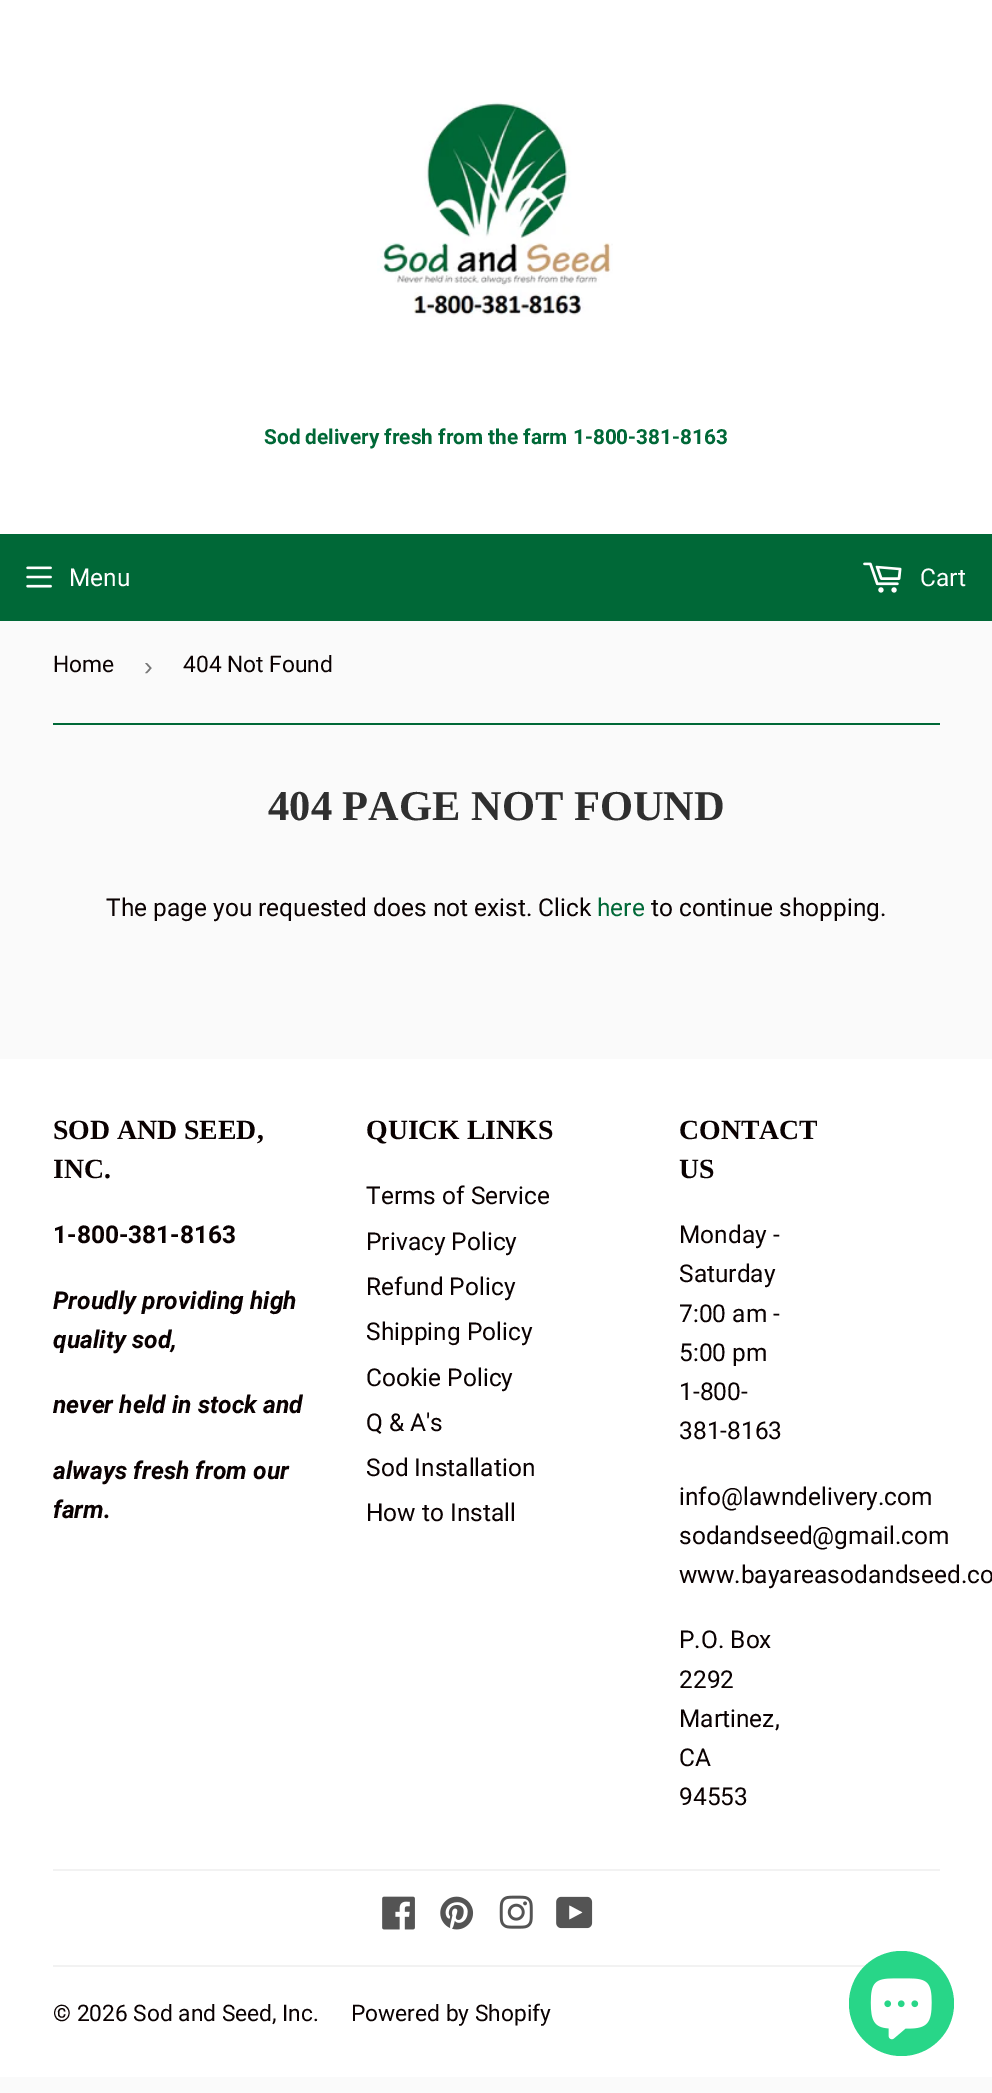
%!PS-Adobe-3.0
%%BoundingBox: 0 0 992 2093
%%LanguageLevel: 3
%%Pages: 1
%%EndComments
%%BeginProlog
/f { fill } bind def
/fn { [ exch dup neg 0 0 3 -1 roll 0 0 ] selectfont } def
/tx { moveto show } def
/bx { rectfill } def
/ci { newpath 0 360 arc closepath } def
/im { 5 dict begin { /h /w /y /x /name } { exch def } forall
  gsave x y translate w h scale
  w h 8 [w 0 0 h 0 0] name (r) file false 3 colorimage grestore end } def
%%EndProlog
%%BeginSetup
<< /PageSize [992 2093] >> setpagedevice
%%EndSetup
%%Page: 1 1
0 2093 translate 1 -1 scale
4 setmiterlimit
0.98 setgray
0 0 992 2093 bx
1 setgray
0 0 992 534 bx
(image0.raw) 377 102 236 218 im
/Roboto-Bold 20.8 fn
0 0.408 0.216 setrgbcolor
(Sod delivery fresh from the farm 1-800-381-8163) 264 444 tx
0 534 992 87 bx
(image1.raw) 26 566 26 22 im
/Roboto-Regular 24.5 fn
1 setgray
(Menu) 69 586 tx
(image2.raw) 863 562 39 31 im
(Cart) 920 586 tx
0 0.408 0.216 setrgbcolor
53 723 887 2 bx
/Roboto-Regular 22.75 fn
0.039 0.004 0.004 setrgbcolor
(Home) 53 672 tx
/LiberationSans-Regular 26 fn
0.463 setgray
(›) 144 675 tx
/Roboto-Regular 22.75 fn
0.039 0.004 0.004 setrgbcolor
(404 Not Found) 183 672 tx
/LiberationSerif-Bold 42.5 fn
0.184 setgray
(404 PAGE NOT FOUND) 268 820 tx
/Roboto-Regular 24.5 fn
0.039 0.004 0.004 setrgbcolor
(The page you requested does not exist. Click) 106 916 tx
0 0.408 0.216 setrgbcolor
(here) 597 916 tx
0.039 0.004 0.004 setrgbcolor
(to continue shopping.) 651 916 tx
1 setgray
0 1059 992 1018 bx
/LiberationSerif-Bold 27.75 fn
0.039 0.004 0.004 setrgbcolor
(SOD AND SEED,) 53 1139 tx
(INC.) 53 1178 tx
/Roboto-Bold 24.5 fn
(1-800-381-8163) 53 1243 tx
/Roboto-BoldItalic 24.5 fn
(Proudly providing high) 53 1309 tx
(quality sod,) 53 1348 tx
(never held in stock and) 53 1413 tx
(always fresh from our) 53 1479 tx
(farm.) 53 1518 tx
/LiberationSerif-Bold 27.75 fn
(QUICK LINKS) 366 1139 tx
/Roboto-Regular 24.5 fn
(Terms of Service) 366 1204 tx
(Privacy Policy) 366 1250 tx
(Refund Policy) 366 1295 tx
(Shipping Policy) 366 1340 tx
(Cookie Policy) 366 1386 tx
(Q & A's) 366 1431 tx
(Sod Installation) 366 1476 tx
(How to Install) 366 1521 tx
/LiberationSerif-Bold 27.75 fn
(CONTACT) 679 1139 tx
(US) 679 1178 tx
/Roboto-Regular 24.5 fn
(Monday -) 679 1243 tx
(Saturday) 679 1282 tx
(7:00 am -) 679 1322 tx
(5:00 pm) 679 1361 tx
(1-800-) 679 1400 tx
(381-8163) 679 1439 tx
(info@lawndelivery.com) 679 1505 tx
(sodandseed@gmail.com) 679 1544 tx
(www.bayareasodandseed.co) 679 1583 tx
(P.O. Box) 679 1648 tx
(2292) 679 1688 tx
(Martinez,) 679 1727 tx
(CA) 679 1766 tx
(94553) 679 1805 tx
0.949 setgray
53 1869 887 2 bx
(image3.raw) 382 1896 33 34 im
(image4.raw) 440 1896 34 34 im
(image5.raw) 499 1895 34 34 im
(image6.raw) 556 1896 37 33 im
53 1965 887 2 bx
/Roboto-Regular 22.75 fn
0.039 0.004 0.004 setrgbcolor
(© 2026 Sod and Seed, Inc.) 53 2021 tx
(Powered by Shopify) 351 2021 tx
0.157 0.839 0.533 setrgbcolor
901.5 2003.5 52.5 ci f
(image7.raw) 870 1978 62 62 im
showpage
%%EOF
